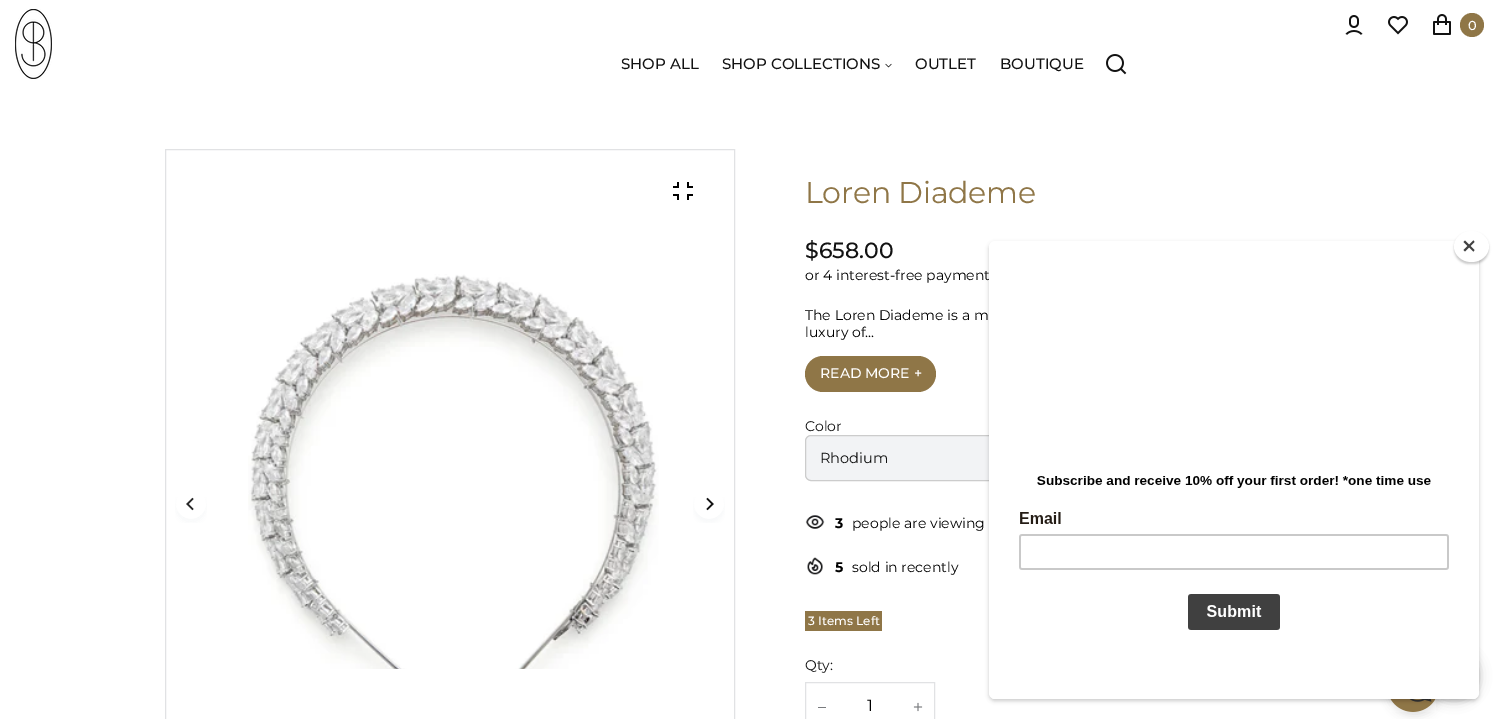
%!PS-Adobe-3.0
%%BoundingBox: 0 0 1499 719
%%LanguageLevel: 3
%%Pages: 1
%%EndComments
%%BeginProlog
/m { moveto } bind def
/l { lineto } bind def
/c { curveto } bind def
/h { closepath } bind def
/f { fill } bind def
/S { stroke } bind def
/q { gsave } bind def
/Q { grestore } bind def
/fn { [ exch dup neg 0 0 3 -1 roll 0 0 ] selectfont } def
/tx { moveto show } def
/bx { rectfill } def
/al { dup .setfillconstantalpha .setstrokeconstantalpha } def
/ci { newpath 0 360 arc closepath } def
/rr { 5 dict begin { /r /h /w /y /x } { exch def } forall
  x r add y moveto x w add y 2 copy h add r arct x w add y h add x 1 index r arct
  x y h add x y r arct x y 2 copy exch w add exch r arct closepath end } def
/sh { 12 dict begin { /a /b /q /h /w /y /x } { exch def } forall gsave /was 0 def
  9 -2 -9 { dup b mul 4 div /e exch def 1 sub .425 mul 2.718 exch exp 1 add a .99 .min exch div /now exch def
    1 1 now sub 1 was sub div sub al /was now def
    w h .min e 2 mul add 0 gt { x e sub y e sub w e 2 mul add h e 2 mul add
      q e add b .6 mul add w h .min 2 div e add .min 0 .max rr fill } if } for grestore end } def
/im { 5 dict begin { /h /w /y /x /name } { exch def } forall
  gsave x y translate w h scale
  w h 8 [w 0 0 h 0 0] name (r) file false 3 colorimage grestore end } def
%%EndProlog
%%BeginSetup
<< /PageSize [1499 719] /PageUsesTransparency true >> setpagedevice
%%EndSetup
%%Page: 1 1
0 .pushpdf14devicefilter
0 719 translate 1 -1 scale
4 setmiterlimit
1 setgray
0 0 1499 719 bx
(image0.raw) 15 9 37 70 im
(image1.raw) 1345 15 18 20 im
(image2.raw) 1388 16 20 19 im
(image3.raw) 1433 14 18 21 im
0.561 0.463 0.278 setrgbcolor
1472 25 12 ci f
/Montserrat-Medium 13 fn
1 setgray
(0) 1468 30 tx
/Montserrat-Medium 15 fn
0.071 setgray
(SHOP ALL) 621 69 tx
(SHOP COLLECTIONS) 722 69 tx
(image4.raw) 885 63 7 5 im
(OUTLET) 915 69 tx
(BOUTIQUE) 1000 69 tx
(image5.raw) 1106 54 21 21 im
(image6.raw) 248 274 411 395 im
0.882 0.886 0.894 setrgbcolor
165.5 149.5 569 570 rectstroke
(image7.raw) 673 182 20 18 im
(image8.raw) 175 497 32 26 im
(image9.raw) 693 497 32 26 im
/Montserrat-Regular 30 fn
0.561 0.463 0.278 setrgbcolor
805 203 m -0.25 0 (Loren Diademe) ashow
/Montserrat-Medium 22 fn
0.071 setgray
($658.00) 805 258 tx
/Montserrat-Regular 14 fn
0 setgray
(or 4 interest-free payment) 805 280 tx
(The Loren Diademe is a m) 805 320 tx
(luxury of...) 805 337 tx
0.561 0.463 0.278 setrgbcolor
805 356 131 36 18 rr f
/Montserrat-Medium 14 fn
1 setgray
(READ MORE +) 820 378 tx
/Montserrat-Regular 14 fn
0.071 setgray
(Color) 805 431 tx
0.949 0.953 0.961 setrgbcolor
805.5 435.5 229 45 5.5 rr q f Q
0.8 setgray
S
/Montserrat-Regular 14.5 fn
0.071 setgray
(Rhodium) 820 463 tx
(image10.raw) 805 515 20 14 im
/Montserrat-Bold 14 fn
0 setgray
(3) 835 528 tx
/Montserrat-Regular 14 fn
(people are viewing) 852 528 tx
(image11.raw) 807 557 16 18 im
/Montserrat-Bold 14 fn
(5) 835 572 tx
/Montserrat-Regular 14 fn
(sold in recently) 852 572 tx
0.561 0.463 0.278 setrgbcolor
805 611 77 20 bx
/Montserrat-Medium 12 fn
1 setgray
(3 Items Left) 808 625 tx
/Montserrat-Regular 14 fn
0.071 setgray
(Qty:) 805 670 tx
0.882 0.886 0.894 setrgbcolor
805.5 682.5 129 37 rectstroke
0.475 0.482 0.494 setrgbcolor
818 707 8 1 bx
/Montserrat-Regular 16 fn
0 setgray
(1) 867 711 tx
(image12.raw) 913 702 10 10 im
1429 651 50 50 25 6 0.2 sh
1387 660 56 56 28 4.5 0.07 sh
1387 662 52 52 26 5 0.05 sh
(image14.raw) 1390 699 46 13 im
989 243 490 458 6 2 0.2 sh
1 setgray
989 241 490 458 6 rr f
0 setgray
1454 233 35 31 15.5 1 0.2 sh
1 setgray
1471.5 231 m 1481 231 1489 238 1489 246.5 c 1489 255 1481 262 1471.5 262 c 1462 262 1454 255 1454 246.5 c 1454 238 1462 231 1471.5 231 c h f
0.255 setgray
1473.5 240.5 m 1474.5 242 l 1465 251.5 l 1463.5 250 l h f
1463.5 242 m 1465 240.5 l 1474.5 250 l 1473.5 251.5 l h f
(image13.raw) 992 476 484 223 im
.poppdf14devicefilter showpage
%%EOF
